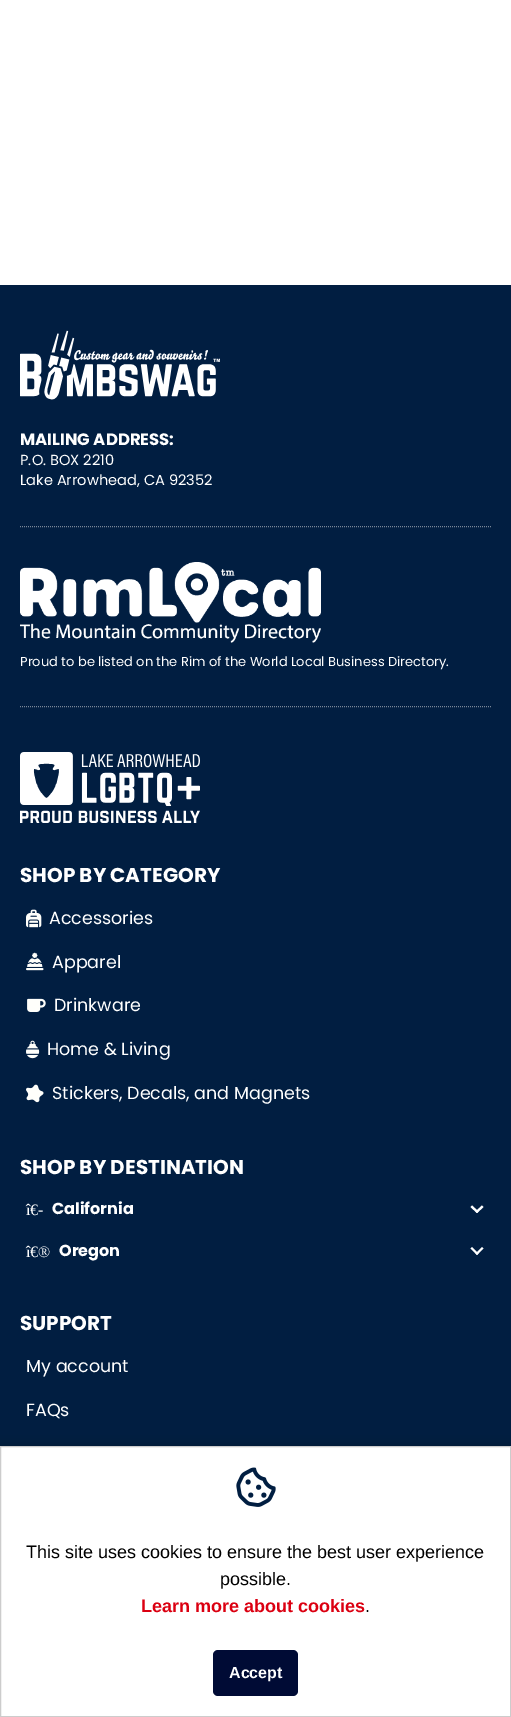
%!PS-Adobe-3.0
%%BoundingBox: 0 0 511 1717
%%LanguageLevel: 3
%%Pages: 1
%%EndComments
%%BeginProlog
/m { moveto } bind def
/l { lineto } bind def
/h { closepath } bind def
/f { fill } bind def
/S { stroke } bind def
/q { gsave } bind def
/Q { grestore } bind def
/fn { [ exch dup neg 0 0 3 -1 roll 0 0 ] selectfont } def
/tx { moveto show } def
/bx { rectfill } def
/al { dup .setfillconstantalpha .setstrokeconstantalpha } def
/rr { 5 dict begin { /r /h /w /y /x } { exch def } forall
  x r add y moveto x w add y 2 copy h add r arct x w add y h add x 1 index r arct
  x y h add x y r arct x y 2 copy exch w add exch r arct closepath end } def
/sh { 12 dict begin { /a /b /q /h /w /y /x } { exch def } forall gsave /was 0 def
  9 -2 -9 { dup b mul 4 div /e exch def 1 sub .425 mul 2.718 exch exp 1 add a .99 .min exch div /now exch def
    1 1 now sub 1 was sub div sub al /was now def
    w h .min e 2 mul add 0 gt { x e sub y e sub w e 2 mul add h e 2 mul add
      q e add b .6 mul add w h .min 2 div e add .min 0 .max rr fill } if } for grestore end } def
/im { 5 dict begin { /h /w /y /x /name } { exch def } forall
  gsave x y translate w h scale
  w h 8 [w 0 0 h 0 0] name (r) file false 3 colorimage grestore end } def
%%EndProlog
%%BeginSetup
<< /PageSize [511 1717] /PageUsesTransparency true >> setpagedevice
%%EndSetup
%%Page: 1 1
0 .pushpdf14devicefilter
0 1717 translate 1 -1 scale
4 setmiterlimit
1 setgray
0 0 511 1717 bx
0.004 0.118 0.255 setrgbcolor
0 285 511 1161 bx
(image0.raw) 20 330 200 70 im
/Poppins-Bold 16.5 fn
1 setgray
(MAILING ADDRESS:) 20 445 tx
/Poppins-Regular 14.6 fn
(P.O. BOX 2210) 20 465 tx
(Lake Arrowhead, CA 92352) 20 485 tx
0.475 0.529 0.6 setrgbcolor
[1 1] 0 setdash
20 526.5 m 491 526.5 l S
(image1.raw) 20 562 301 81 im
/Poppins-Regular 13 fn
1 setgray
(Proud to be listed on the Rim of the World Local Business Directory.) 20 666 tx
0.475 0.529 0.6 setrgbcolor
20 706.5 m 491 706.5 l S
(image2.raw) 20 752 180 71 im
/Poppins-Bold 20 fn
1 setgray
(SHOP BY CATEGORY) 20 882 tx
(image3.raw) 26 909 16 19 im
/Poppins-Regular 17.5 fn
(Accessories) 49 924 tx
(image4.raw) 26 952 18 19 im
(Apparel) 52 968 tx
(image5.raw) 27 998 19 14 im
(Drinkware) 54 1011 tx
(image6.raw) 26 1040 14 19 im
(Home & Living) 47 1055 tx
(image7.raw) 26 1084 18 19 im
(Stickers, Decals, and Magnets) 52 1099 tx
/Poppins-Bold 20 fn
(SHOP BY DESTINATION) 20 1174 tx
/LiberationSerif-Regular 16 fn
(î€-) 26 1215 tx
/Poppins-Bold 16 fn
(California) 52 1214 tx
482 1205.5 m 483.5 1207 l 477 1213 l 475.5 1211.5 l h f
472 1205.5 m 478.5 1211.5 l 477 1213 l 470.5 1207 l h 482 1247 m 483.5 1248.5 l 477 1255 l 475.5 1253.5 l h f
/LiberationSerif-Regular 16 fn
(î€®) 26 1257 tx
/Poppins-Bold 16 fn
(Oregon) 59 1256 tx
472 1247 m 478.5 1253.5 l 477 1255 l 470.5 1248.5 l h f
/Poppins-Bold 20 fn
(SUPPORT) 20 1330 tx
/Poppins-Regular 17.5 fn
(My account) 26 1372 tx
(FAQs) 26 1416 tx
0 setgray
0 1446 511 271 0 5 0.2 sh
1 setgray
0.5 1446.5 m 510.5 1446.5 l 510.5 1716.5 l 0.5 1716.5 l h q f Q
0.8 setgray
[] 0 setdash
S
(image8.raw) 236 1467 40 40 im
/LiberationSans-Regular 18 fn
0 setgray
(This site uses cookies to ensure the best user experience) 26 1558 tx
(possible.) 220 1585 tx
/LiberationSans-Bold 18 fn
0.859 0 0.067 setrgbcolor
(Learn more about cookies) 141 1612 tx
/LiberationSans-Regular 18 fn
0 setgray
(.) 365 1612 tx
0 0.043 0.208 setrgbcolor
213 1650 85 46 5 rr f
/LiberationSans-Bold 16 fn
1 setgray
(Accept) 229 1678 tx
.poppdf14devicefilter showpage
%%EOF
